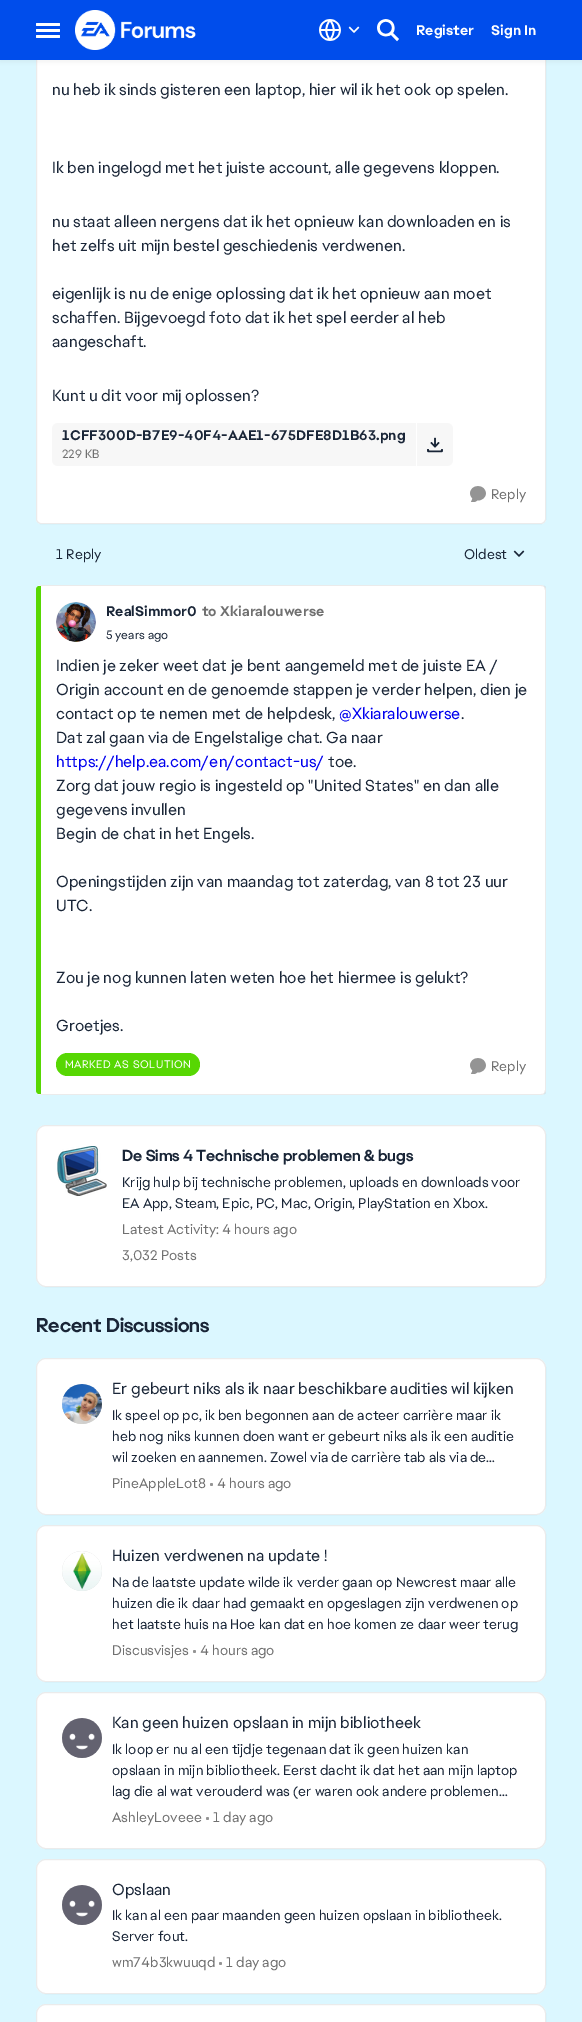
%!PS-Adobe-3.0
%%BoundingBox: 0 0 582 2022
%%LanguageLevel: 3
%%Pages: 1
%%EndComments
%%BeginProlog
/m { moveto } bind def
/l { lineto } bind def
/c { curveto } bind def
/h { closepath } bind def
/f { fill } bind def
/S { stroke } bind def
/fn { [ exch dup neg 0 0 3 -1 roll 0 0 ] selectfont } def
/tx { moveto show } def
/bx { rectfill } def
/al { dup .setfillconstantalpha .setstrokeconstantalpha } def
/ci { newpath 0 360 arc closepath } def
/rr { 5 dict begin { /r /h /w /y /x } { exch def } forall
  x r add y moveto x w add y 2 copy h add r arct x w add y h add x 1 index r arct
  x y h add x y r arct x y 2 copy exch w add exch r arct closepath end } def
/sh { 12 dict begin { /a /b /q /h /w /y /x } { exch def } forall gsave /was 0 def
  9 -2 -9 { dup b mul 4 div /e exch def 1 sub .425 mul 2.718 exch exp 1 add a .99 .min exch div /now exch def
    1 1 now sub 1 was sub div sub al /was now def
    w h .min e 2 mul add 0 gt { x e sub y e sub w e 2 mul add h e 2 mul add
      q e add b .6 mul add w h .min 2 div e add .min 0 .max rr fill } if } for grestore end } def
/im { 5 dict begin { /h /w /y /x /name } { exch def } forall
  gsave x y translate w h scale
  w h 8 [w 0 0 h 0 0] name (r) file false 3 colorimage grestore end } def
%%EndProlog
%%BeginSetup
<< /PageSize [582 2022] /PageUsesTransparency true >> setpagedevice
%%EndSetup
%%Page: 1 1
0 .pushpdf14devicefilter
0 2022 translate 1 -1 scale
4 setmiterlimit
0.859 0.969 1 setrgbcolor
0 0 582 2022 bx
1 setgray
36 -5 510 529 5 rr f
0.08 al
0 setgray
36.5 -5.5 509 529 4.5 rr S
1 al
0.2 setgray
0 2 582 60 0 2 0.06 sh
0 0.302 0.922 setrgbcolor
0 0 582 60 bx
1 setgray
36 23 24 3 1 rr f
36 29 24 3 1 rr f
36 35 24 3 1 rr f
(image0.raw) 75 10 121 40 im
(image1.raw) 319 19 22 22 im
(image2.raw) 348 26 12 7 im
(image3.raw) 377 19 22 23 im
/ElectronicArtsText-Bold 14 fn
(Register) 416 35 tx
(Sign In) 491 35 tx
/ElectronicArtsText-Regular 16 fn
0.098 0.145 0.216 setrgbcolor
(nu heb ik sinds gisteren een laptop, hier wil ik het ook op spelen.) 52 95 tx
(Ik ben ingelogd met het juiste account, alle gegevens kloppen.) 52 173 tx
(nu staat alleen nergens dat ik het opnieuw kan downloaden en is) 52 227 tx
(het zelfs uit mijn bestel geschiedenis verdwenen.) 52 251 tx
(eigenlijk is nu de enige oplossing dat ik het opnieuw aan moet) 52 299 tx
(schaffen. Bijgevoegd foto dat ik het spel eerder al heb) 52 323 tx
(aangeschaft.) 52 347 tx
(Kunt u dit voor mij oplossen?) 52 401 tx
0.969 setgray
58 423 m 416 423 l 416 466 l 58 466 l 54.5 466 52 463.5 52 460 c 52 429 l 52 425.5 54.5 423 58 423 c h f
/ElectronicArtsText-Bold 14 fn
0.098 0.145 0.216 setrgbcolor
(1CFF300D-B7E9-40F4-AAE1-675DFE8D1B63.png) 62 440 tx
/ElectronicArtsText-Regular 12 fn
0.439 setgray
(229 KB) 62 458 tx
0.969 setgray
416 423 m 447 423 l 450.5 423 453 425.5 453 429 c 453 460 l 453 463.5 450.5 466 447 466 c 416 466 l h f
1 setgray
416 423 1 43 bx
(image4.raw) 427 437 16 16 im
(image5.raw) 470 486 16 16 im
/ElectronicArtsText-Regular 14 fn
0.439 setgray
(Reply) 491 499 tx
0.098 0.145 0.216 setrgbcolor
(1 Reply) 56 559 tx
(Oldest) 464 559 tx
(image6.raw) 513 550 12 7 im
1 setgray
36 585 510 510 5 rr f
0.08 al
0 setgray
41 585 m 39 586 l 41 586 l 541 586 l 542 586 543 586 544 587 c 545 586 l 544 586 542 585 541 585 c h f
546 1090 m 546 590 l 546 588 546 587 545 586 c 544 587 l 544 588 545 589 545 590 c 545 1090 l 545 1091 544 1092 544 1093 c 545 1094 l 546 1093 546 1092 546 1090 c h f
41 1095 m 541 1095 l 542 1095 544 1094 545 1094 c 544 1093 l 543 1094 542 1094 541 1094 c 41 1094 l 39 1094 l h f
1 al
0.341 0.843 0.012 setrgbcolor
41 586 m 39 586 l 37 586 36 588 36 590 c 36 1090 l 36 1092 37 1094 39 1094 c 41 1094 l h f
0.851 setgray
76 622 20 ci f
(image7.raw) 56 602 40 40 im
/ElectronicArtsText-Bold 14 fn
0.098 0.145 0.216 setrgbcolor
(RealSimmor0) 106 616 tx
0.439 setgray
(to Xkiaralouwerse) 202 616 tx
/ElectronicArtsText-Regular 12 fn
0.098 0.145 0.216 setrgbcolor
(5 years ago) 106 639 tx
/ElectronicArtsText-Regular 16 fn
(Indien je zeker weet dat je bent aangemeld met de juiste EA /) 56 671 tx
(Origin account en de genoemde stappen je verder helpen, dien je) 56 695 tx
(contact op te nemen met de helpdesk,) 56 719 tx
0 0 0.933 setrgbcolor
(@Xkiaralouwerse) 339 719 tx
0.098 0.145 0.216 setrgbcolor
(.) 461 719 tx
(Dat zal gaan via de Engelstalige chat. Ga naar) 56 743 tx
0 0 0.933 setrgbcolor
(https://help.ea.com/en/contact-us/) 56 767 tx
0.098 0.145 0.216 setrgbcolor
(toe.) 328 767 tx
(Zorg dat jouw regio is ingesteld op "United States" en dan alle) 56 791 tx
(gegevens invullen) 56 815 tx
(Begin de chat in het Engels.) 56 839 tx
(Openingstijden zijn van maandag tot zaterdag, van 8 tot 23 uur) 56 887 tx
(UTC.) 56 911 tx
(Zou je nog kunnen laten weten hoe het hiermee is gelukt?) 56 983 tx
(Groetjes.) 56 1031 tx
0.341 0.843 0.012 setrgbcolor
56 1053 144 23 11.5 rr f
/ElectronicArtsText-Regular 11 fn
1 setgray
65 1068 m 0.5 0 (MARKED AS SOLUTION) ashow
(image5.raw) 470 1058 16 16 im
/ElectronicArtsText-Regular 14 fn
0.439 setgray
(Reply) 491 1071 tx
1 setgray
36 1125 510 162 10 rr f
0.08 al
0 setgray
36.5 1125.5 509 161 9.5 rr S
1 al
(image8.raw) 57 1146 50 50 im
/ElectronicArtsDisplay-Bold 16 fn
0.098 0.145 0.216 setrgbcolor
(De Sims 4 Technische problemen & bugs) 122 1161 tx
/ElectronicArtsText-Regular 14 fn
(Krijg hulp bij technische problemen, uploads en downloads voor) 122 1187 tx
(EA App, Steam, Epic, PC, Mac, Origin, PlayStation en Xbox.) 122 1208 tx
0.439 setgray
(Latest Activity: 4 hours ago) 122 1234 tx
(3,032 Posts) 122 1260 tx
/ElectronicArtsDisplay-Bold 20 fn
0.098 0.145 0.216 setrgbcolor
(Recent Discussions) 36 1332 tx
1 setgray
36 1358 510 157 10 rr f
0.08 al
0 setgray
36.5 1358.5 509 156 9.5 rr S
1 al
0.851 setgray
82 1404 20 ci f
(image9.raw) 62 1384 40 40 im
/ElectronicArtsText-Regular 16 fn
0.098 0.145 0.216 setrgbcolor
(Er gebeurt niks als ik naar beschikbare audities wil kijken) 112 1394 tx
/ElectronicArtsText-Regular 14 fn
(Ik speel op pc, ik ben begonnen aan de acteer carrière maar ik) 112 1420 tx
(heb nog niks kunnen doen want er gebeurt niks als ik een auditie) 112 1441 tx
(wil zoeken en aannemen. Zowel via de carrière tab als via de…) 112 1462 tx
0.439 setgray
(PineAppleLot8) 112 1488 tx
0.58 setgray
211.5 1484.5 1.5 ci f
0.439 setgray
(4 hours ago) 217 1488 tx
1 setgray
36 1525 510 157 10 rr f
0.08 al
0 setgray
36.5 1525.5 509 156 9.5 rr S
1 al
0.851 setgray
82 1571 20 ci f
(image10.raw) 62 1551 40 40 im
/ElectronicArtsText-Regular 16 fn
0.098 0.145 0.216 setrgbcolor
(Huizen verdwenen na update !) 112 1561 tx
/ElectronicArtsText-Regular 14 fn
(Na de laatste update wilde ik verder gaan op Newcrest maar alle) 112 1587 tx
(huizen die ik daar had gemaakt en opgeslagen zijn verdwenen op) 112 1608 tx
(het laatste huis na Hoe kan dat en hoe komen ze daar weer terug) 112 1629 tx
0.439 setgray
(Discusvisjes) 112 1655 tx
0.58 setgray
194.5 1651.5 1.5 ci f
0.439 setgray
(4 hours ago) 200 1655 tx
1 setgray
36 1692 510 157 10 rr f
0.08 al
0 setgray
36.5 1692.5 509 156 9.5 rr S
1 al
0.851 setgray
82 1738 20 ci f
(image11.raw) 62 1718 40 40 im
/ElectronicArtsText-Regular 16 fn
0.098 0.145 0.216 setrgbcolor
(Kan geen huizen opslaan in mijn bibliotheek) 112 1728 tx
/ElectronicArtsText-Regular 14 fn
(Ik loop er nu al een tijdje tegenaan dat ik geen huizen kan) 112 1754 tx
(opslaan in mijn bibliotheek. Eerst dacht ik dat het aan mijn laptop) 112 1775 tx
(lag die al wat verouderd was \(er waren ook andere problemen…) 112 1796 tx
0.439 setgray
(AshleyLoveee) 112 1822 tx
0.58 setgray
207.5 1818.5 1.5 ci f
0.439 setgray
(1 day ago) 213 1822 tx
1 setgray
36 1859 510 135 10 rr f
0.08 al
0 setgray
36.5 1859.5 509 134 9.5 rr S
1 al
0.851 setgray
82 1905 20 ci f
(image11.raw) 62 1885 40 40 im
/ElectronicArtsText-Regular 16 fn
0.098 0.145 0.216 setrgbcolor
(Opslaan) 112 1895 tx
/ElectronicArtsText-Regular 14 fn
(Ik kan al een paar maanden geen huizen opslaan in bibliotheek.) 112 1920 tx
(Server fout.) 112 1941 tx
0.439 setgray
(wm74b3kwuuqd) 112 1967 tx
0.58 setgray
220.5 1963.5 1.5 ci f
0.439 setgray
(1 day ago) 226 1967 tx
1 setgray
36 2004 510 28 10 rr f
0.08 al
0 setgray
36.5 2004.5 509 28 9.5 rr S
.poppdf14devicefilter showpage
%%EOF
